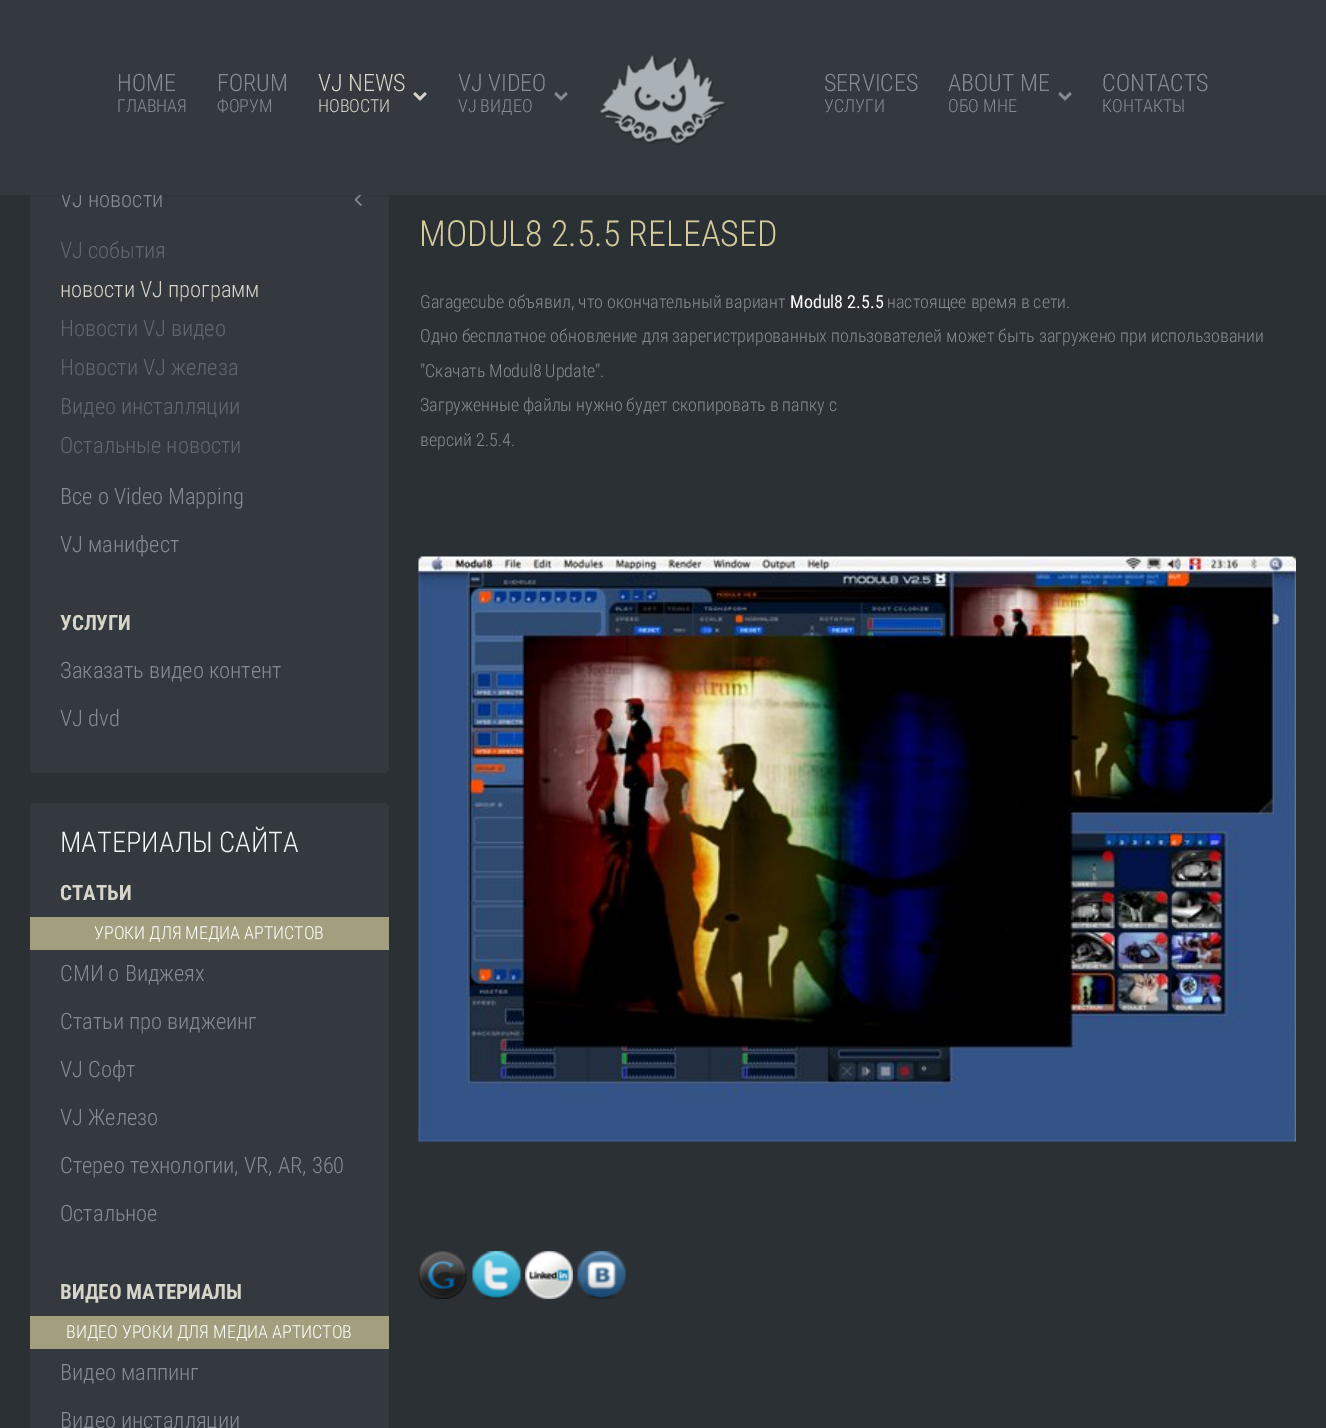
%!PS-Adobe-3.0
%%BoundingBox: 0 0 1326 1428
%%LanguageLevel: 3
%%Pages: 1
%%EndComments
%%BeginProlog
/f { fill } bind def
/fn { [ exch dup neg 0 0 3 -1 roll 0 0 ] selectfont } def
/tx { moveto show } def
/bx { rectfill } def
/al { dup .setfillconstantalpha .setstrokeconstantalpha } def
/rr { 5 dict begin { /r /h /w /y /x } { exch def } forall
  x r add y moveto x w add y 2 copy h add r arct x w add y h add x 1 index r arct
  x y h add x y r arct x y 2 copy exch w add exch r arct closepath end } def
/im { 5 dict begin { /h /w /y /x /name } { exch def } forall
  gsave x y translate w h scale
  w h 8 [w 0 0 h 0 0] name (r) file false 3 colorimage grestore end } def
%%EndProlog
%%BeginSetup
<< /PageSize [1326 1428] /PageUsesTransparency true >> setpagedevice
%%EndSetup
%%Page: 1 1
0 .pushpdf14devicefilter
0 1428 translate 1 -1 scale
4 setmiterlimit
0.169 0.188 0.204 setrgbcolor
0 0 1326 1428 bx
0.2 0.224 0.243 setrgbcolor
30 110 359 663 5 rr f
(image3.raw) 354 195 8 11 im
0.05 al
0 setgray
30 195 359 2 bx
/RobotoCondensed-Light 22.5 fn
1 al
0.522 0.545 0.573 setrgbcolor
(VJ новости) 60 207 tx
0.2 0.224 0.243 setrgbcolor
0 0 1326 195 bx
(image0.raw) 599 55 127 90 im
/RobotoCondensed-Light 24 fn
0.522 0.545 0.573 setrgbcolor
(HOME) 117 91 tx
/RobotoCondensed-Light 18 fn
(ГЛАВНАЯ) 117 112 tx
/RobotoCondensed-Light 24 fn
(FORUM) 217 91 tx
/RobotoCondensed-Light 18 fn
(ФОРУМ) 217 112 tx
/RobotoCondensed-Light 24 fn
0.843 0.835 0.788 setrgbcolor
(VJ NEWS) 318 91 tx
(image1.raw) 413 92 14 9 im
/RobotoCondensed-Light 18 fn
(НОВОСТИ) 318 112 tx
/RobotoCondensed-Light 24 fn
0.522 0.545 0.573 setrgbcolor
(VJ VIDEO) 458 91 tx
(image2.raw) 554 92 14 9 im
/RobotoCondensed-Light 18 fn
(VJ ВИДЕО) 458 112 tx
/RobotoCondensed-Light 24 fn
(SERVICES) 824 91 tx
/RobotoCondensed-Light 18 fn
(УСЛУГИ) 824 112 tx
/RobotoCondensed-Light 24 fn
(ABOUT ME) 948 91 tx
(image2.raw) 1058 92 14 9 im
/RobotoCondensed-Light 18 fn
(ОБО МНЕ) 948 112 tx
/RobotoCondensed-Light 24 fn
(CONTACTS) 1102 91 tx
/RobotoCondensed-Light 18 fn
(КОНТАКТЫ) 1102 112 tx
/RobotoCondensed-Light 22.5 fn
0.376 0.404 0.427 setrgbcolor
(VJ события) 60 258 tx
0.843 0.835 0.788 setrgbcolor
(новости VJ программ) 60 297 tx
0.376 0.404 0.427 setrgbcolor
(Новости VJ видео) 60 336 tx
(Новости VJ железа) 60 375 tx
(Видео инсталляции) 60 414 tx
(Остальные новости) 60 453 tx
0.522 0.545 0.573 setrgbcolor
(Все о Video Mapping) 60 504 tx
(VJ манифест) 60 552 tx
/RobotoCondensed-Bold 21 fn
0.843 0.835 0.788 setrgbcolor
(УСЛУГИ) 60 630 tx
/RobotoCondensed-Light 22.5 fn
0.522 0.545 0.573 setrgbcolor
(Заказать видео контент) 60 678 tx
(VJ dvd) 60 726 tx
0.2 0.224 0.243 setrgbcolor
30 803 359 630 5 rr f
/RobotoCondensed-Light 28.5 fn
0.945 0.965 0.98 setrgbcolor
(МАТЕРИАЛЫ САЙТА) 60 852 tx
/RobotoCondensed-Bold 21 fn
0.843 0.835 0.788 setrgbcolor
(СТАТЬИ) 60 900 tx
0.639 0.624 0.494 setrgbcolor
30 917 359 33 bx
/RobotoCondensed-Light 18 fn
1 setgray
(УРОКИ ДЛЯ МЕДИА АРТИСТОВ) 94 939 tx
/RobotoCondensed-Light 22.5 fn
0.522 0.545 0.573 setrgbcolor
(СМИ о Виджеях) 60 981 tx
(Статьи про виджеинг) 60 1029 tx
(VJ Софт) 60 1077 tx
(VJ Железо) 60 1125 tx
(Стерео технологии, VR, AR, 360) 60 1173 tx
(Остальное) 60 1221 tx
/RobotoCondensed-Bold 21 fn
0.843 0.835 0.788 setrgbcolor
(ВИДЕО МАТЕРИАЛЫ) 60 1299 tx
0.639 0.624 0.494 setrgbcolor
30 1316 359 33 bx
/RobotoCondensed-Light 18 fn
1 setgray
(ВИДЕО УРОКИ ДЛЯ МЕДИА АРТИСТОВ) 66 1338 tx
/RobotoCondensed-Light 22.5 fn
0.522 0.545 0.573 setrgbcolor
(Видео маппинг) 60 1380 tx
(Видео инсталляции) 60 1428 tx
/RobotoCondensed-Light 36 fn
0.827 0.796 0.6 setrgbcolor
(MODUL8 2.5.5 RELEASED) 419 246 tx
/RobotoCondensed-Light 18 fn
0.522 0.545 0.573 setrgbcolor
(Garagecube объявил, что окончательный вариант) 420 308 tx
/RobotoCondensed-Regular 18 fn
1 setgray
(Modul8 2.5.5) 790 308 tx
/RobotoCondensed-Light 18 fn
0.522 0.545 0.573 setrgbcolor
(настоящее время в сети.) 887 308 tx
(Одно бесплатное обновление для зарегистрированных пользователей может быть загружено при использовании) 420 342 tx
("Скачать Modul8 Update".) 420 377 tx
(Загруженные файлы нужно будет скопировать в папку с) 420 411 tx
(версий 2.5.4.) 420 446 tx
(image4.raw) 418 556 878 586 im
(image5.raw) 418 1251 49 48 im
(image6.raw) 472 1251 49 48 im
(image7.raw) 525 1251 48 48 im
(image8.raw) 577 1251 49 48 im
.poppdf14devicefilter showpage
%%EOF
